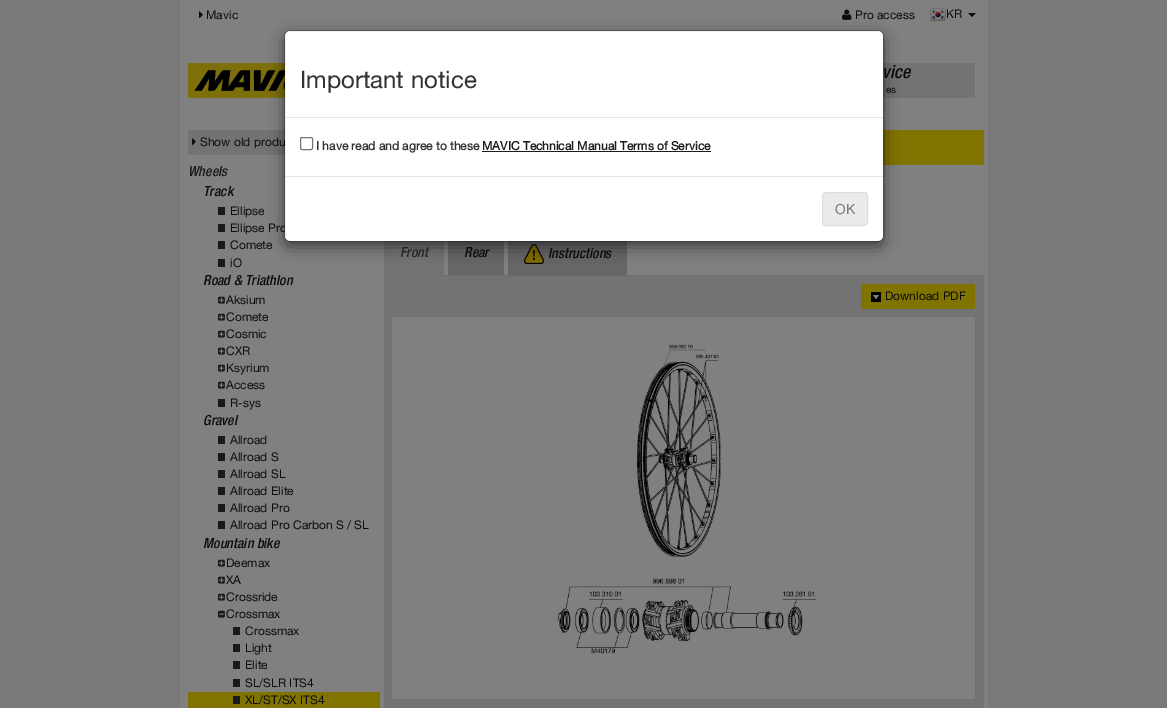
%!PS-Adobe-3.0
%%BoundingBox: 0 0 1167 708
%%LanguageLevel: 3
%%Pages: 1
%%EndComments
%%BeginProlog
/m { moveto } bind def
/l { lineto } bind def
/h { closepath } bind def
/f { fill } bind def
/S { stroke } bind def
/q { gsave } bind def
/Q { grestore } bind def
/fn { [ exch dup neg 0 0 3 -1 roll 0 0 ] selectfont } def
/tx { moveto show } def
/bx { rectfill } def
/al { dup .setfillconstantalpha .setstrokeconstantalpha } def
/rr { 5 dict begin { /r /h /w /y /x } { exch def } forall
  x r add y moveto x w add y 2 copy h add r arct x w add y h add x 1 index r arct
  x y h add x y r arct x y 2 copy exch w add exch r arct closepath end } def
/sh { 12 dict begin { /a /b /q /h /w /y /x } { exch def } forall gsave /was 0 def
  9 -2 -9 { dup b mul 4 div /e exch def 1 sub .425 mul 2.718 exch exp 1 add a .99 .min exch div /now exch def
    1 1 now sub 1 was sub div sub al /was now def
    w h .min e 2 mul add 0 gt { x e sub y e sub w e 2 mul add h e 2 mul add
      q e add b .6 mul add w h .min 2 div e add .min 0 .max rr fill } if } for grestore end } def
/im { 5 dict begin { /h /w /y /x /name } { exch def } forall
  gsave x y translate w h scale
  w h 8 [w 0 0 h 0 0] name (r) file false 3 colorimage grestore end } def
%%EndProlog
%%BeginSetup
<< /PageSize [1167 708] /PageUsesTransparency true >> setpagedevice
%%EndSetup
%%Page: 1 1
0 .pushpdf14devicefilter
0 708 translate 1 -1 scale
4 setmiterlimit
0.475 setgray
0 0 1167 708 bx
0.502 setgray
180 0 808 708 bx
(image0.raw) 199 11 4 8 im
/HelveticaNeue-Regular 12 fn
0.051 setgray
(Mavic) 206 19 tx
(image1.raw) 842 9 10 11 im
(Pro access) 855 19 tx
(image2.raw) 930 8 16 14 im
(KR) 946 18 tx
968 13 m 976 13 l 972 17 l h f
(image3.raw) 188 63 97 35 im
0.451 setgray
883 63 92 35 bx
/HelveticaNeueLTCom-MediumItalic 18 fn
0.051 setgray
(vice) 882 78 tx
/HelveticaNeue-Regular 10 fn
(es) 886 93 tx
0.451 setgray
188 130 97 25 bx
(image4.raw) 192 138 4 8 im
/HelveticaNeue-Regular 12 fn
0.051 setgray
(Show old produ) 200 146 tx
/HelveticaNeueLTCom-MediumItalic 14 fn
0.102 setgray
(Wheels) 188 176 tx
0.051 setgray
(Track) 203 196 tx
0.102 setgray
218 207 7 8 bx
/HelveticaNeue-Regular 12 fn
0.051 setgray
(Ellipse) 230 215 tx
0.102 setgray
218 224 7 8 bx
0.051 setgray
(Ellipse Pro) 230 232 tx
0.102 setgray
218 241 7 8 bx
0.051 setgray
(Comete) 230 249 tx
0.102 setgray
218 259 7 8 bx
0.051 setgray
(iO) 230 267 tx
/HelveticaNeueLTCom-MediumItalic 14 fn
(Road & Triathlon) 203 285 tx
(image5.raw) 218 296 7 8 im
/HelveticaNeue-Regular 12 fn
(Aksium) 226 304 tx
(image5.raw) 218 313 7 8 im
(Comete) 226 321 tx
(image5.raw) 218 330 7 8 im
(Cosmic) 226 338 tx
(image5.raw) 218 347 7 8 im
(CXR) 226 355 tx
(image5.raw) 218 364 7 8 im
(Ksyrium) 226 372 tx
(image5.raw) 218 381 7 8 im
(Access) 226 389 tx
0.102 setgray
218 399 7 8 bx
0.051 setgray
(R-sys) 230 407 tx
/HelveticaNeueLTCom-MediumItalic 14 fn
(Gravel) 203 425 tx
0.102 setgray
218 436 7 8 bx
/HelveticaNeue-Regular 12 fn
0.051 setgray
(Allroad) 230 444 tx
0.102 setgray
218 453 7 8 bx
0.051 setgray
(Allroad S) 230 461 tx
0.102 setgray
218 470 7 8 bx
0.051 setgray
(Allroad SL) 230 478 tx
0.102 setgray
218 487 7 8 bx
0.051 setgray
(Allroad Elite) 230 495 tx
0.102 setgray
218 504 7 8 bx
0.051 setgray
(Allroad Pro) 230 512 tx
0.102 setgray
218 521 7 8 bx
0.051 setgray
(Allroad Pro Carbon S / SL) 230 529 tx
/HelveticaNeueLTCom-MediumItalic 14 fn
(Mountain bike) 203 548 tx
(image5.raw) 218 559 7 8 im
/HelveticaNeue-Regular 12 fn
(Deemax) 226 567 tx
(image5.raw) 218 576 7 8 im
(XA) 226 584 tx
(image5.raw) 218 593 7 8 im
(Crossride) 226 601 tx
(image6.raw) 218 610 7 8 im
(Crossmax) 226 618 tx
0.102 setgray
233 627 7 8 bx
0.051 setgray
(Crossmax) 245 635 tx
0.102 setgray
233 644 7 8 bx
0.051 setgray
(Light) 245 652 tx
0.102 setgray
233 661 7 8 bx
0.051 setgray
(Elite) 245 669 tx
0.102 setgray
233 679 7 8 bx
0.051 setgray
(SL/SLR ITS4) 245 687 tx
0.502 0.451 0 setrgbcolor
188 692 192 16 bx
0.102 setgray
233 696 7 8 bx
0.051 setgray
(XL/ST/SX ITS4) 245 704 tx
0.502 0.451 0 setrgbcolor
883 130 101 35 bx
0.435 setgray
384 275 600 1 bx
0.451 setgray
384 241 60 34 bx
0.435 setgray
444 233 m 444 275 l 443 274 l 443 234 l h 384 275 m 384 233 l 385 234 l 385 274 l h f
/HelveticaNeueLTCom-MediumItalic 14 fn
0.169 setgray
(Front) 400 257 tx
0.4 setgray
448 241 56 34 bx
0.051 setgray
(Rear) 464 257 tx
0.4 setgray
508 241 119 35 bx
(image7.raw) 524 244 20 20 im
0.051 setgray
(Instructions) 548 258 tx
0.451 setgray
384 276 600 432 bx
0.502 0.451 0 setrgbcolor
861 284 114 25 bx
(image8.raw) 871 292 10 10 im
/HelveticaNeue-Regular 12 fn
0.051 setgray
(Download PDF) 885 300 tx
(image9.raw) 392 317 583 382 im
0 setgray
284 35 600 212 6 7.5 0.5 sh
1 setgray
285 31 598 210 5 rr f
0.2 al
0 setgray
284.5 30.5 599 211 5.5 rr S
1 al
0.898 setgray
285 117 598 1 bx
/HelveticaNeue-Regular 24 fn
0.2 setgray
(Important notice) 300 88 tx
0.463 setgray
300.5 137.5 12 12 1.5 rr S
/HelveticaNeue-Bold 12 fn
0.2 setgray
(I have read and agree to these) 316 150 tx
0.102 setgray
(MAVIC Technical Manual Terms of Service) 482 150 tx
482 151 229 1 bx
0.898 setgray
285 176 598 1 bx
0.922 setgray
822.5 192.5 45 33 3.5 rr q f Q
0.871 setgray
S
/HelveticaNeue-Regular 14 fn
0.478 setgray
(OK) 835 214 tx
.poppdf14devicefilter showpage
%%EOF
